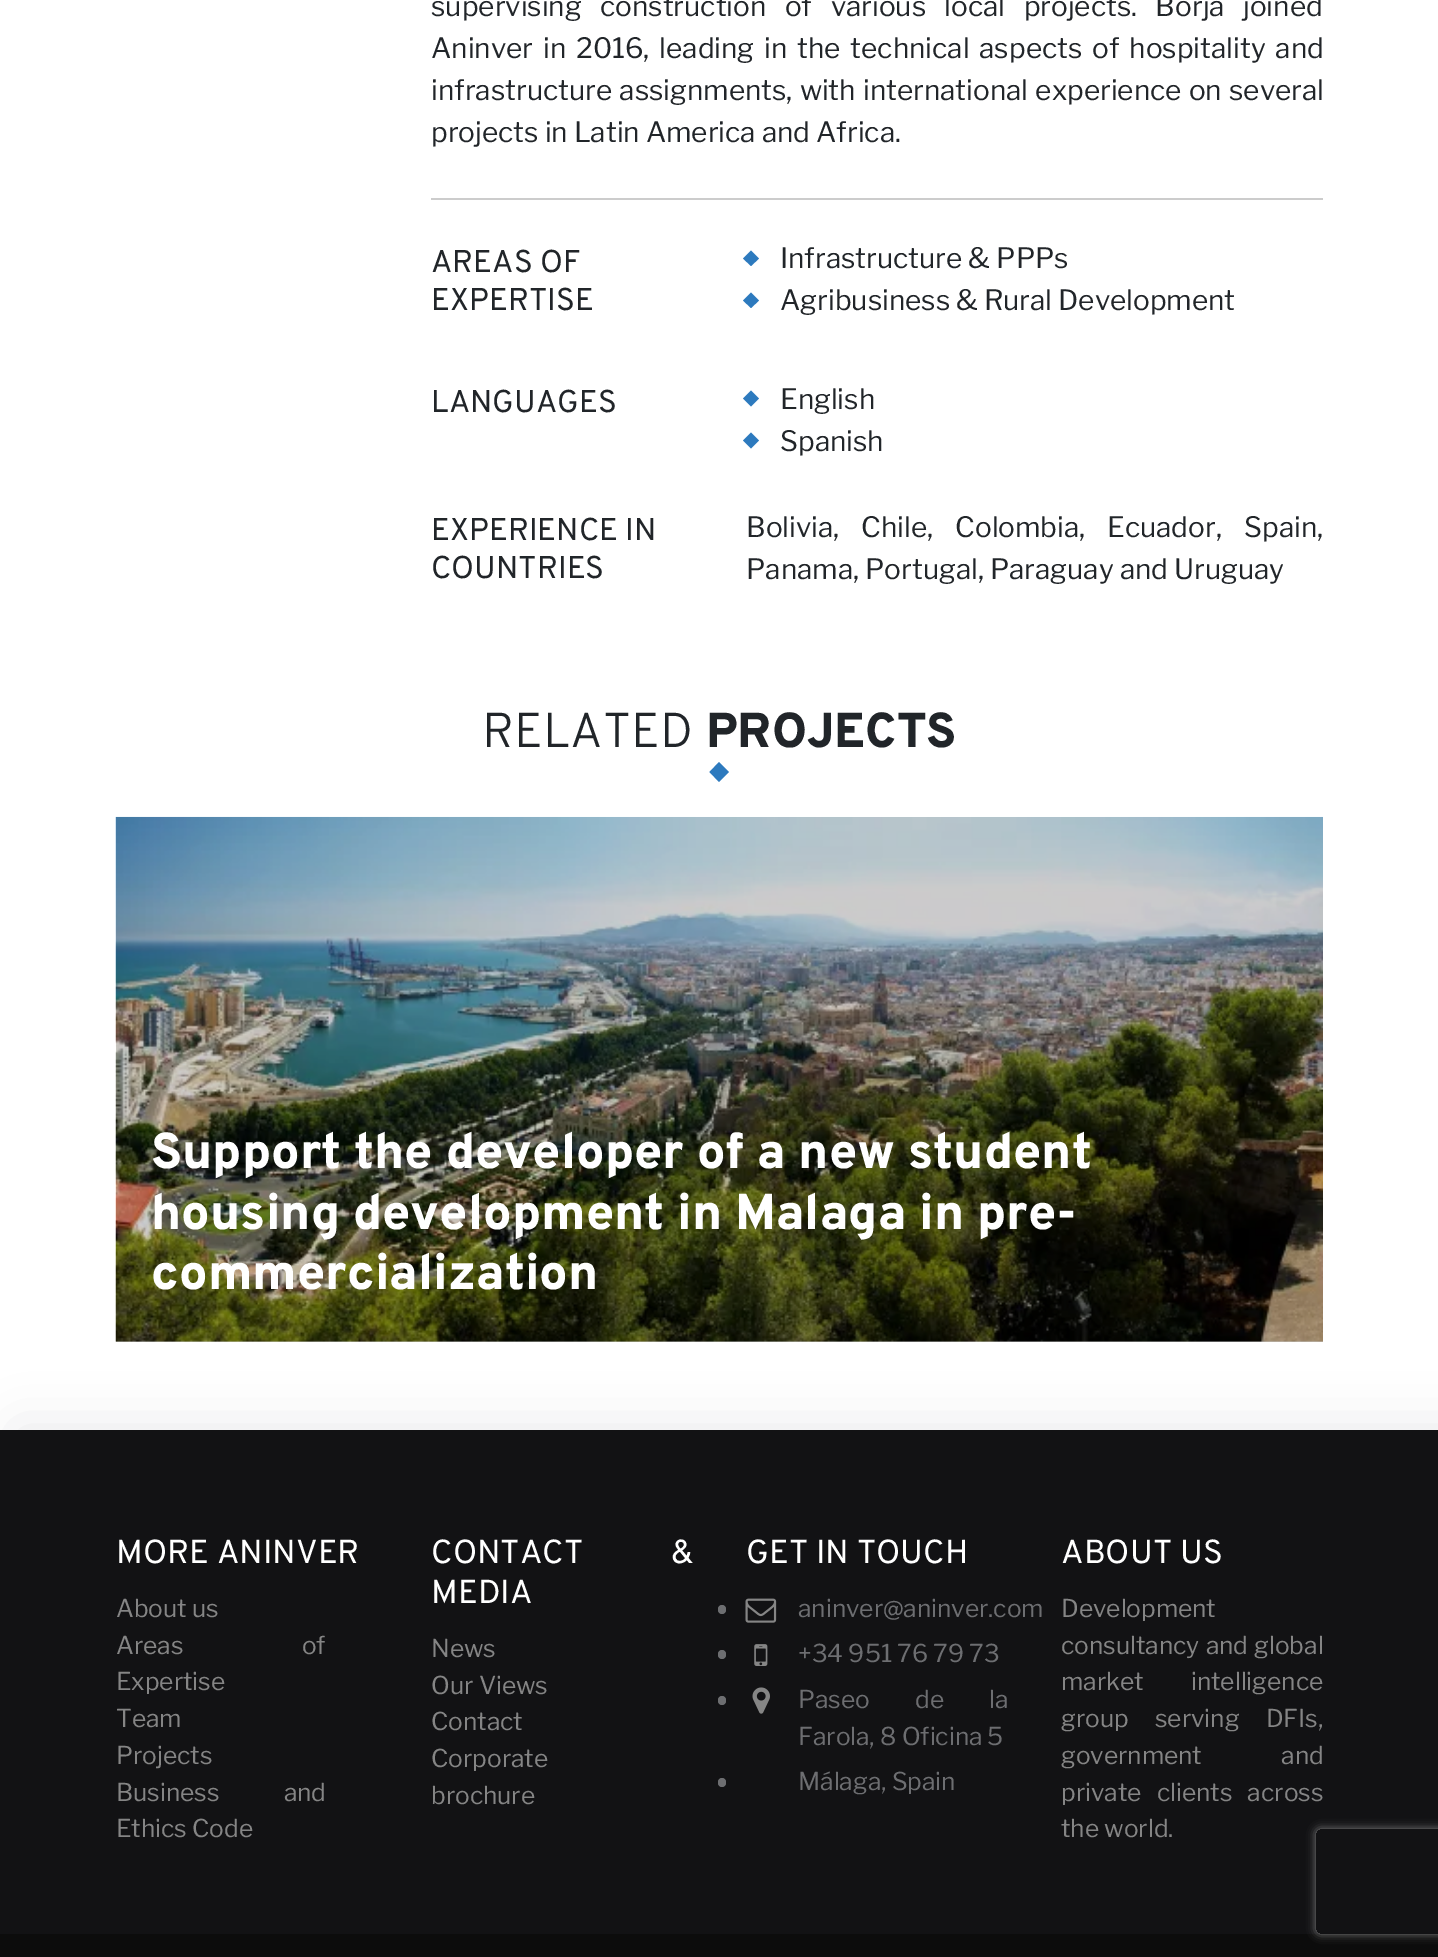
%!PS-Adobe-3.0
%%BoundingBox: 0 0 1438 1957
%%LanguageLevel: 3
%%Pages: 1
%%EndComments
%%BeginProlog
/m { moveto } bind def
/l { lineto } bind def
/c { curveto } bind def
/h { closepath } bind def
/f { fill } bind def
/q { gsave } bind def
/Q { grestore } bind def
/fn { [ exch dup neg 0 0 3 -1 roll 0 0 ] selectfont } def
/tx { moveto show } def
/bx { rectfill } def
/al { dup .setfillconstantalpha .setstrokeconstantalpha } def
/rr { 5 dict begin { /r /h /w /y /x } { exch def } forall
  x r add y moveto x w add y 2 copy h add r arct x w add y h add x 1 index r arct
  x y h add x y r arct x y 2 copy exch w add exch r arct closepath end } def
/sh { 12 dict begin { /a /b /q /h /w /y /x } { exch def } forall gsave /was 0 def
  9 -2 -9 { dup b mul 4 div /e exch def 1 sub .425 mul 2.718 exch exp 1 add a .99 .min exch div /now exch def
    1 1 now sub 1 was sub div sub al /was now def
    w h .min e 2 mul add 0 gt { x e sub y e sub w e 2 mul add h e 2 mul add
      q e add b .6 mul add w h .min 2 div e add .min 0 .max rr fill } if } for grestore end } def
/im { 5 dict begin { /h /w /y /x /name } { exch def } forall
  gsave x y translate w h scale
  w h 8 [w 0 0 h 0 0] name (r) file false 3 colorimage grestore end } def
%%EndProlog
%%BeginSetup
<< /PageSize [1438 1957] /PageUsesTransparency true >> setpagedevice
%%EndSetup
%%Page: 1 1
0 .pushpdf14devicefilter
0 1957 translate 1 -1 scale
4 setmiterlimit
1 setgray
0 0 1438 1957 bx
0.8 setgray
116 1341 1207 1 bx
431 198 892 2 bx
/LibreFranklin-Thin 28 fn
0.129 0.145 0.161 setrgbcolor
431 16 m 12.5 0 32 (supervising construction of various local projects. Borja joined) widthshow
431 58 m 3.9 0 32 (Aninver in 2016, leading in the technical aspects of hospitality and) widthshow
431 100 m 1.25 0 32 (infrastructure assignments, with international experience on several) widthshow
(projects in Latin America and Africa.) 431 142 tx
/Overpass-Regular 31.5 fn
(AREAS OF) 431 272 tx
(EXPERTISE) 431 310 tx
0.176 0.478 0.745 setrgbcolor
751 250.5 m 759 258.5 l 751 266 l 743 258.5 l h 751 292.5 m 759 300.5 l 751 308 l 743 300.5 l h f
/LibreFranklin-Thin 28 fn
0.129 0.145 0.161 setrgbcolor
(Infrastructure & PPPs) 780 268 tx
(Agribusiness & Rural Development) 780 310 tx
/Overpass-Regular 31.5 fn
(LANGUAGES) 431 412 tx
0.176 0.478 0.745 setrgbcolor
751 390.5 m 759 398.5 l 751 406.5 l 743 398.5 l h 751 432.5 m 759 440.5 l 751 448.5 l 743 440.5 l h f
/LibreFranklin-Thin 28 fn
0.129 0.145 0.161 setrgbcolor
(English) 780 409 tx
(Spanish) 780 451 tx
/Overpass-Regular 31.5 fn
(EXPERIENCE IN) 431 540 tx
(COUNTRIES) 431 578 tx
/LibreFranklin-Thin 28 fn
(Bolivia,) 746 537 tx
(Chile,) 861 537 tx
(Colombia,) 955 537 tx
(Ecuador,) 1107 537 tx
(Spain,) 1244 537 tx
(Panama, Portugal, Paraguay and Uruguay) 746 579 tx
/Overpass-Light 49 fn
(RELATED) 482 747 tx
/Overpass-ExtraBold 49 fn
(PROJECTS) 706 747 tx
0.176 0.478 0.745 setrgbcolor
719 762 m 729 772 l 719 782 l 709.5 772 l h f
(image0.raw) 115 816 1208 526 im
/Overpass-ExtraBold 50.4 fn
1 setgray
(Support the developer of a new student) 151 1168 tx
(housing development in Malaga in pre-) 151 1229 tx
(commercialization) 151 1289 tx
0.071 0.098 0.129 setrgbcolor
18 1430 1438 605 0 26 0.1 sh
0.071 0.071 0.078 setrgbcolor
0 1430 1438 504 bx
/Overpass-Regular 33.25 fn
1 setgray
(MORE ANINVER) 116 1563 tx
/LibreFranklin-Thin 24.5 fn
0.522 setgray
(About us) 116 1617 tx
116 1654 m 113 0 32 (Areas of) widthshow
(Expertise) 116 1690 tx
(Team) 116 1727 tx
(Projects) 116 1764 tx
116 1801 m 59 0 32 (Business and) widthshow
(Ethics Code) 116 1837 tx
/Overpass-Regular 33.25 fn
1 setgray
431 1563 m 80 0 32 (CONTACT &) widthshow
(MEDIA) 431 1603 tx
/LibreFranklin-Thin 24.5 fn
0.522 setgray
(News) 431 1657 tx
(Our Views) 431 1694 tx
(Contact) 431 1730 tx
(Corporate) 431 1767 tx
(brochure) 431 1804 tx
/Overpass-Regular 33.25 fn
1 setgray
(GET IN TOUCH) 746 1563 tx
0.427 0.431 0.443 setrgbcolor
718 1605 8 9 4 rr f
(image1.raw) 745 1598 32 25 im
/LibreFranklin-Thin 24.5 fn
(aninver@aninver.com) 798 1617 tx
718 1650 8 9 4 rr f
(image2.raw) 754 1644 14 22 im
(+34 951 76 79 73) 798 1662 tx
718 1696 8 9 4 rr f
(image3.raw) 752 1687 18 27 im
798 1708 m 40 0 32 (Paseo de la) widthshow
(Farola, 8 Oficina 5) 798 1745 tx
718 1778 8 9 4 rr f
(Málaga, Spain) 798 1790 tx
/Overpass-Regular 33.25 fn
1 setgray
(ABOUT US) 1061 1563 tx
/LibreFranklin-Thin 24.5 fn
0.522 setgray
(Development) 1061 1617 tx
1061 1654 m 1 0 32 (consultancy and global) widthshow
1061 1690 m 42 0 32 (market intelligence) widthshow
1061 1727 m 21 0 32 (group serving DFIs,) widthshow
1061 1764 m 74 0 32 (government and) widthshow
1061 1801 m 10 0 32 (private clients across) widthshow
(the world.) 1061 1837 tx
0.047 setgray
0 1934 1438 23 bx
q
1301 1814 m 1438 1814 l 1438 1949 l 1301 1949 l h 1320 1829 m 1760 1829 l 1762 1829 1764 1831 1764 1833 c 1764 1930 l 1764 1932 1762 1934 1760 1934 c 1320 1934 l 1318 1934 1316 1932 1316 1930 c 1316 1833 l 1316 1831 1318 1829 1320 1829 c h eoclip newpath
0.502 setgray
1316 1829 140 105 4 4.5 1 sh
Q
.poppdf14devicefilter showpage
%%EOF
